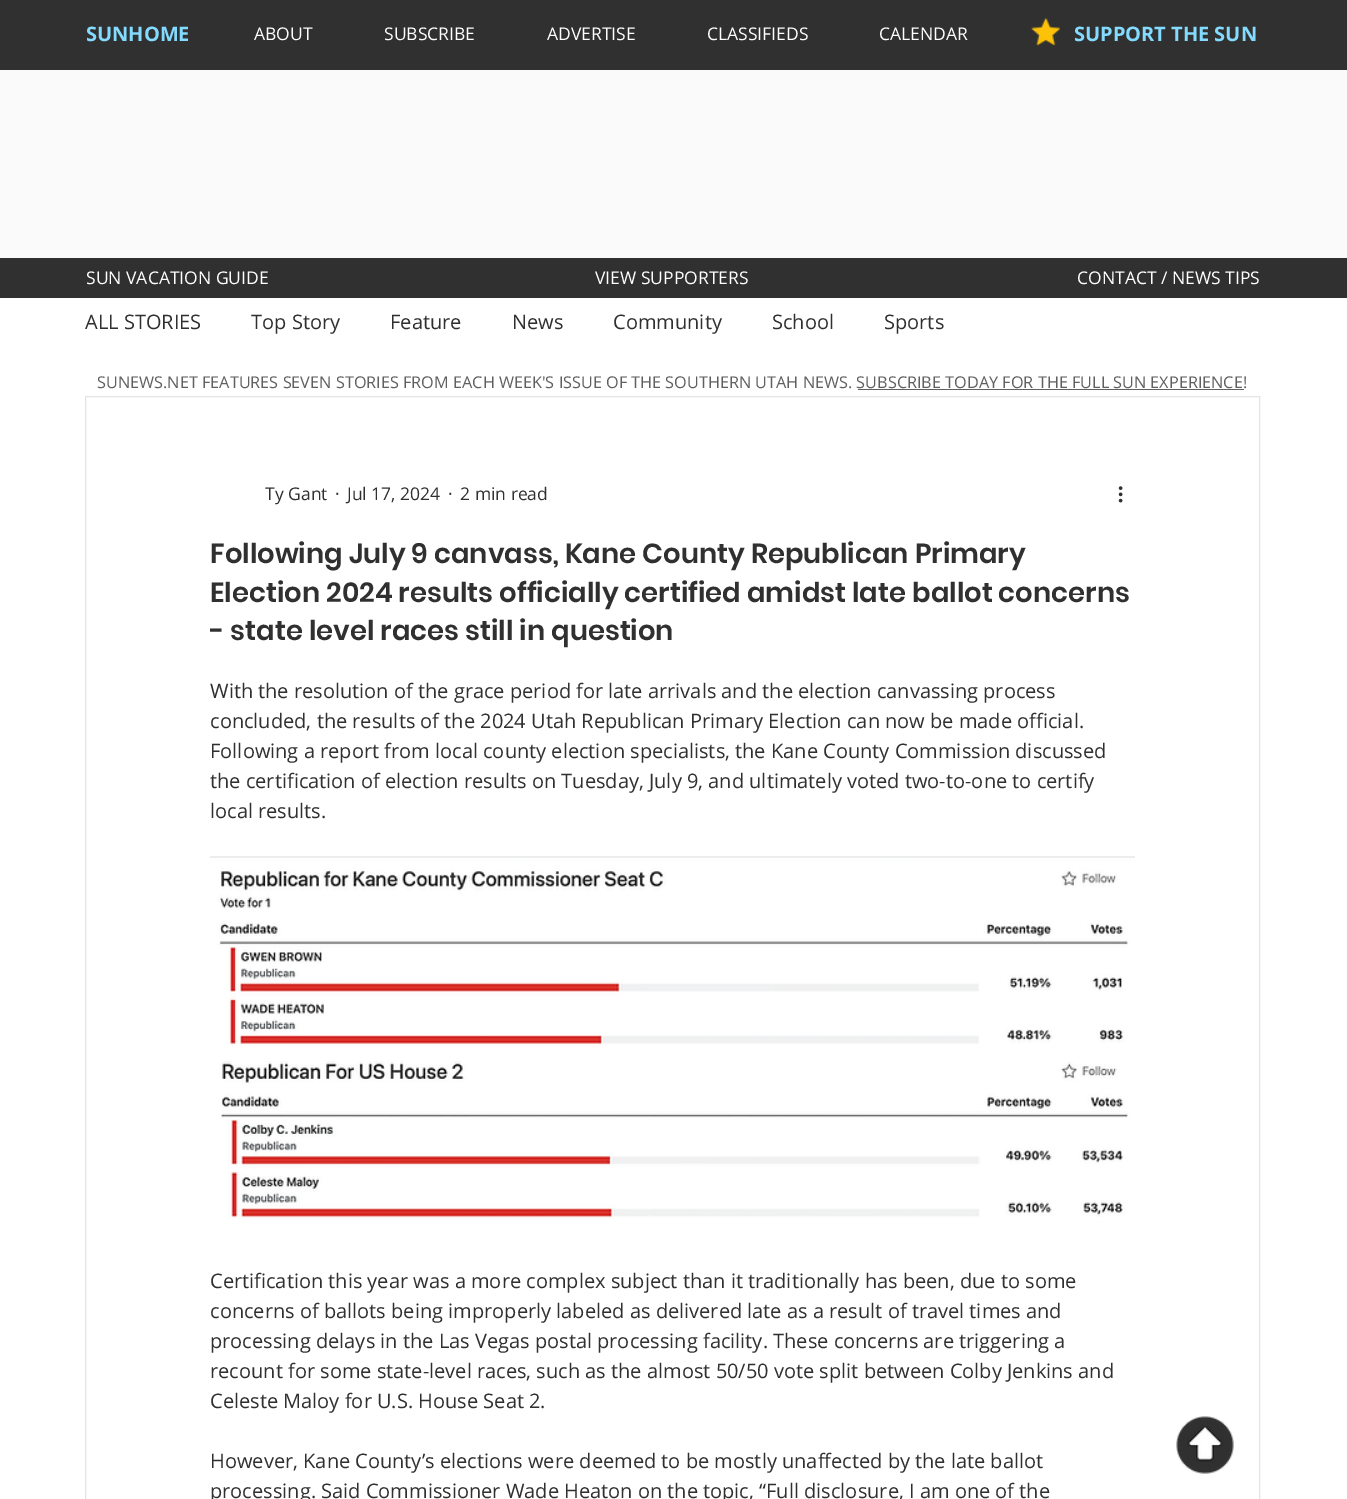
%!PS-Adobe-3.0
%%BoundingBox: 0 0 1347 1499
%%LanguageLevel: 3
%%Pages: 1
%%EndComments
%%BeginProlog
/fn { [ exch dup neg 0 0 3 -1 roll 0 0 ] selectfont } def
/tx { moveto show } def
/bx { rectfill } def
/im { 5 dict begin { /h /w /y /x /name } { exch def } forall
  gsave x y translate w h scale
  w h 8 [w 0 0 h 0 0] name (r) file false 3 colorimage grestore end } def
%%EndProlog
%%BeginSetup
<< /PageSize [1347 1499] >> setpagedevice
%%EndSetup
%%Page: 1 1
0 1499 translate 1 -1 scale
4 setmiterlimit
1 setgray
0 0 1347 1499 bx
0.188 setgray
0 0 1347 70 bx
/OpenSans-Bold 20 fn
0.514 0.859 1 setrgbcolor
(SUNHOME) 86 41 tx
/OpenSans-Regular 17.5 fn
1 setgray
(ABOUT) 254 40 tx
(SUBSCRIBE) 384 40 tx
(ADVERTISE) 547 40 tx
(CLASSIFIEDS) 707 40 tx
(CALENDAR) 879 40 tx
(image0.raw) 1031 17 29 29 im
/OpenSans-Bold 20 fn
0.514 0.859 1 setrgbcolor
(SUPPORT THE SUN) 1074 41 tx
0.98 setgray
0 70 1347 188 bx
0.188 setgray
0 258 1347 40 bx
/OpenSans-Regular 17.5 fn
1 setgray
(SUN VACATION GUIDE) 86 284 tx
(VIEW SUPPORTERS) 595 284 tx
(CONTACT / NEWS TIPS) 1077 284 tx
/OpenSans-Regular 20 fn
0.188 setgray
(ALL STORIES) 85 329 tx
(Top Story) 251 329 tx
(Feature) 390 329 tx
(News) 512 329 tx
(Community) 613 329 tx
(School) 772 329 tx
(Sports) 884 329 tx
0.894 setgray
85.5 396.5 1174 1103 rectstroke
/OpenSans-Regular 17.5 fn
0.188 setgray
(Ty Gant) 265 500 tx
(·) 335 500 tx
(Jul 17, 2024) 347 500 tx
(·) 448 500 tx
(2 min read) 460 500 tx
(image1.raw) 1118 486 5 17 im
/Poppins-SemiBold 27.5 fn
(Following July 9 canvass, Kane County Republican Primary) 210 563 tx
(Election 2024 results officially certified amidst late ballot concerns) 210 602 tx
(- state level races still in question) 210 640 tx
/OpenSans-Regular 20 fn
(With the resolution of the grace period for late arrivals and the election canvassing process) 210 698 tx
(concluded, the results of the 2024 Utah Republican Primary Election can now be made official.) 210 728 tx
(Following a report from local county election specialists, the Kane County Commission discussed) 210 758 tx
(the certification of election results on Tuesday, July 9, and ultimately voted two-to-one to certify) 210 788 tx
(local results.) 210 818 tx
(image2.raw) 210 856 925 362 im
(Certification this year was a more complex subject than it traditionally has been, due to some) 210 1288 tx
(concerns of ballots being improperly labeled as delivered late as a result of travel times and) 210 1318 tx
(processing delays in the Las Vegas postal processing facility. These concerns are triggering a) 210 1348 tx
(recount for some state-level races, such as the almost 50/50 vote split between Colby Jenkins and) 210 1378 tx
(Celeste Maloy for U.S. House Seat 2.) 210 1408 tx
(However, Kane County’s elections were deemed to be mostly unaffected by the late ballot) 210 1468 tx
(processing. Said Commissioner Wade Heaton on the topic, “Full disclosure, I am one of the) 210 1498 tx
/OpenSans-Regular 16.25 fn
0.376 setgray
(SUNEWS.NET FEATURES SEVEN STORIES FROM EACH WEEK'S ISSUE OF THE SOUTHERN UTAH NEWS. SUBSCRIBE TODAY FOR THE FULL SUN EXPERIENCE!) 97 388 tx
858 389 386 1 bx
(image3.raw) 1176 1416 58 58 im
showpage
%%EOF
